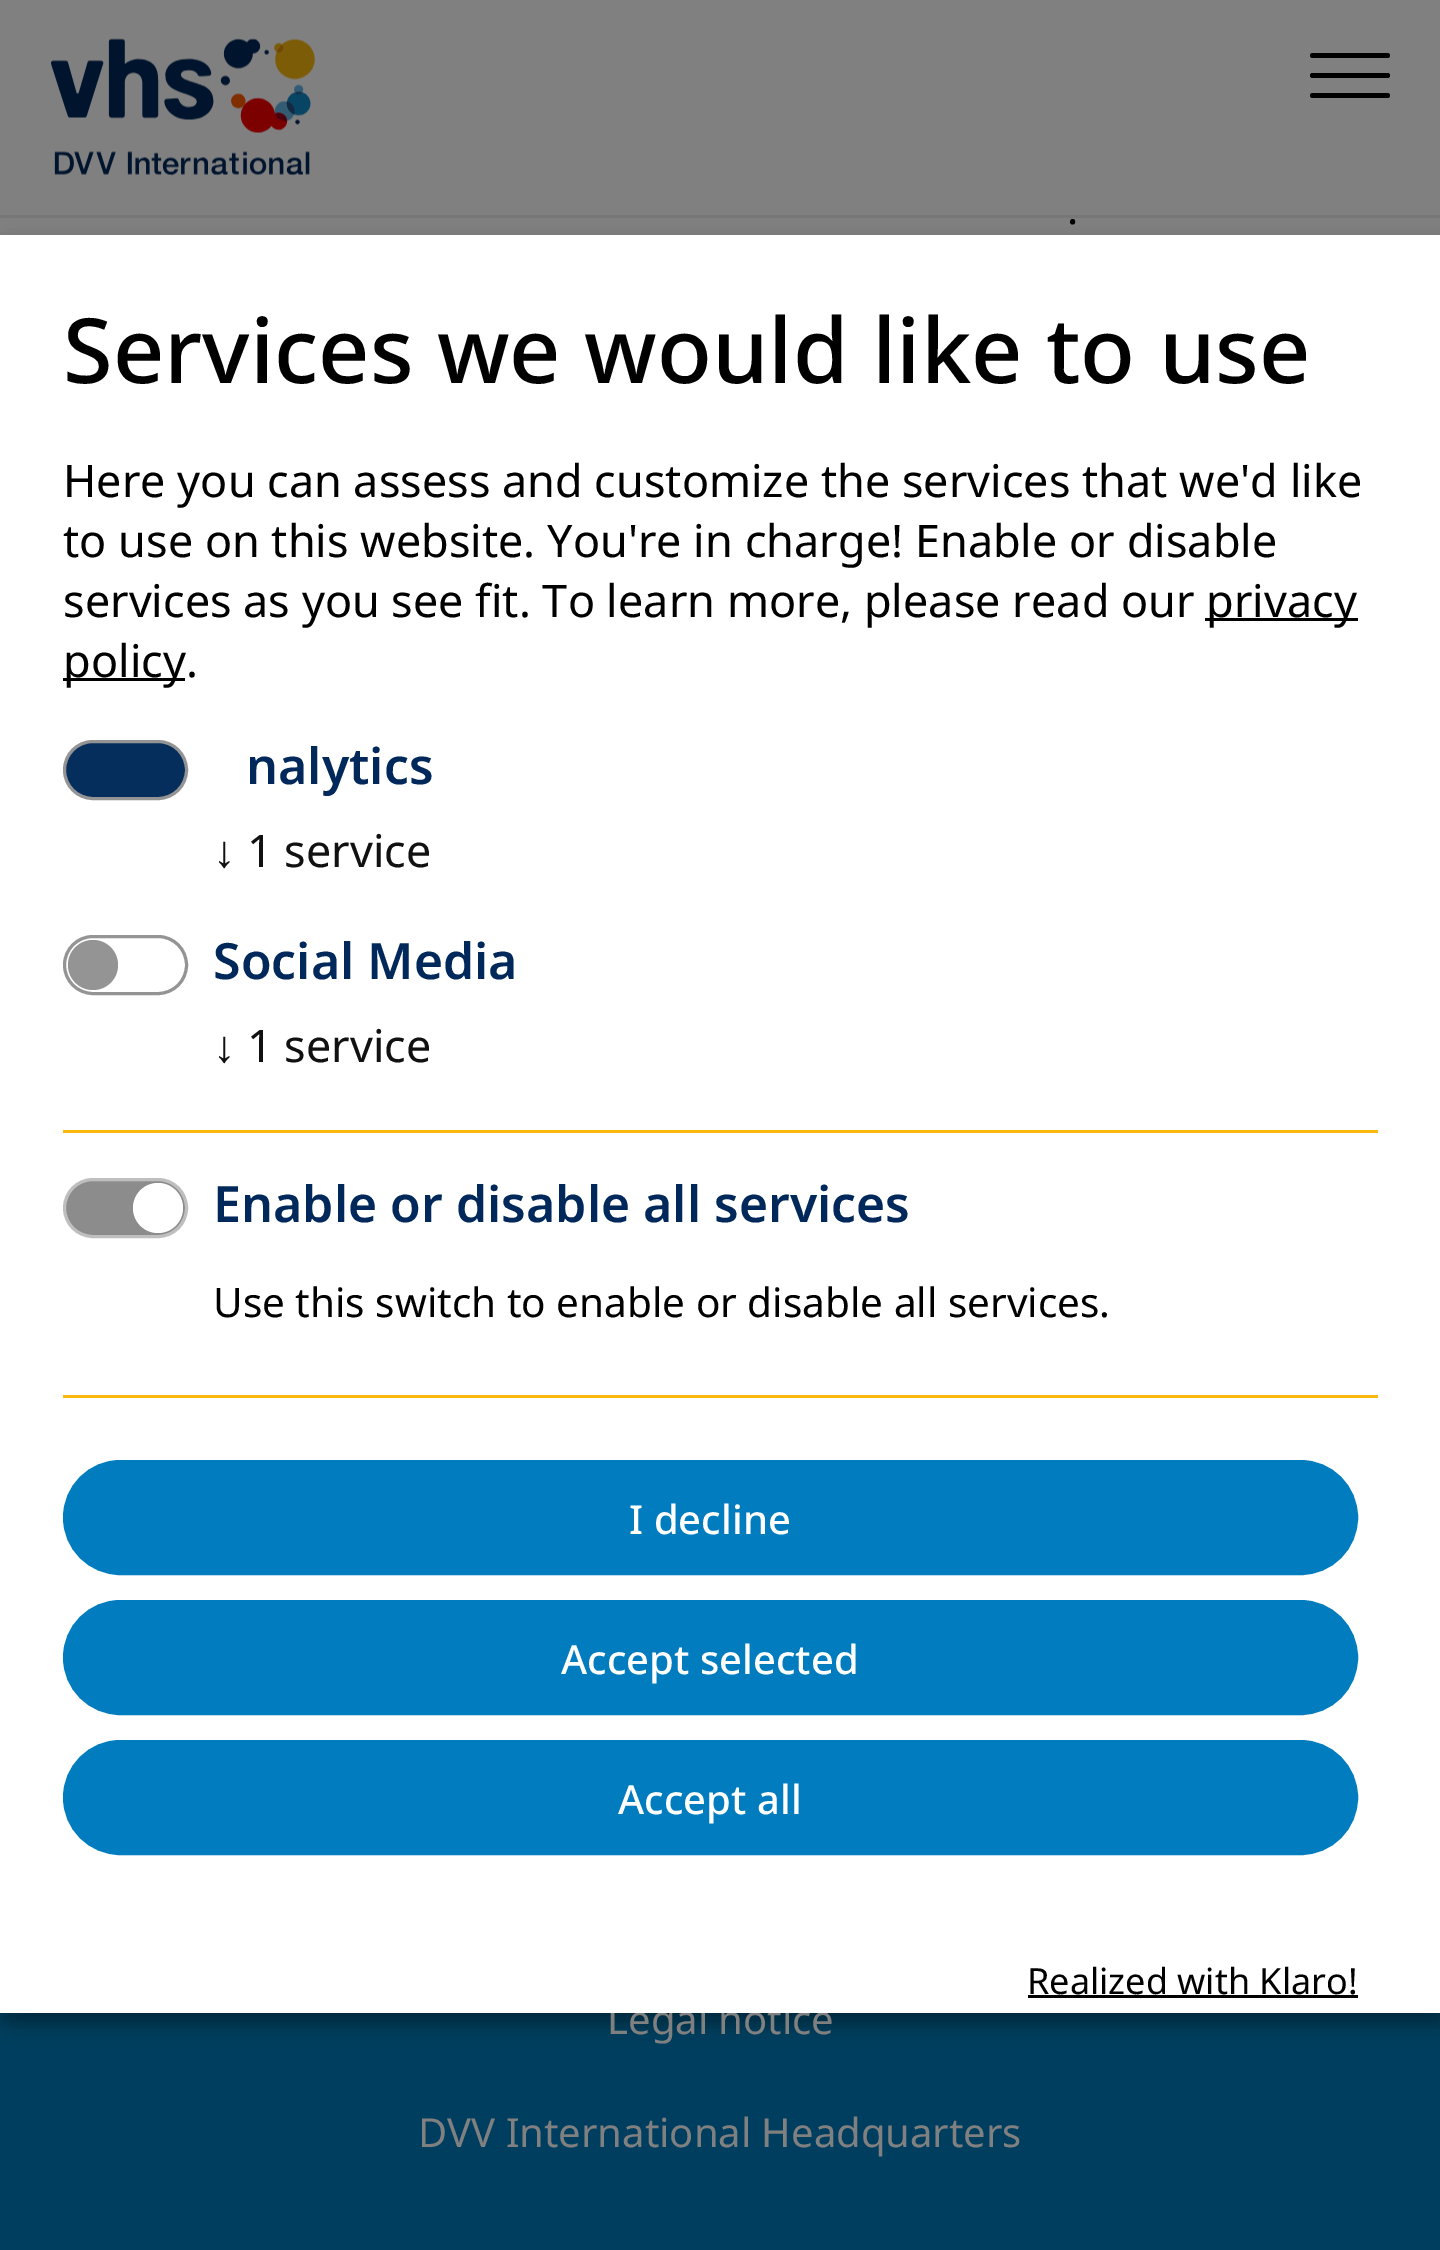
%!PS-Adobe-3.0
%%BoundingBox: 0 0 1440 2250
%%LanguageLevel: 3
%%Pages: 1
%%EndComments
%%BeginProlog
/f { fill } bind def
/S { stroke } bind def
/q { gsave } bind def
/Q { grestore } bind def
/w { setlinewidth } bind def
/fn { [ exch dup neg 0 0 3 -1 roll 0 0 ] selectfont } def
/tx { moveto show } def
/bx { rectfill } def
/al { dup .setfillconstantalpha .setstrokeconstantalpha } def
/ci { newpath 0 360 arc closepath } def
/rr { 5 dict begin { /r /h /w /y /x } { exch def } forall
  x r add y moveto x w add y 2 copy h add r arct x w add y h add x 1 index r arct
  x y h add x y r arct x y 2 copy exch w add exch r arct closepath end } def
/sh { 12 dict begin { /a /b /q /h /w /y /x } { exch def } forall gsave /was 0 def
  9 -2 -9 { dup b mul 4 div /e exch def 1 sub .425 mul 2.718 exch exp 1 add a .99 .min exch div /now exch def
    1 1 now sub 1 was sub div sub al /was now def
    w h .min e 2 mul add 0 gt { x e sub y e sub w e 2 mul add h e 2 mul add
      q e add b .6 mul add w h .min 2 div e add .min 0 .max rr fill } if } for grestore end } def
/im { 5 dict begin { /h /w /y /x /name } { exch def } forall
  gsave x y translate w h scale
  w h 8 [w 0 0 h 0 0] name (r) file false 3 colorimage grestore end } def
%%EndProlog
%%BeginSetup
<< /PageSize [1440 2250] /PageUsesTransparency true >> setpagedevice
%%EndSetup
%%Page: 1 1
0 .pushpdf14devicefilter
0 2250 translate 1 -1 scale
4 setmiterlimit
0.502 setgray
0 0 1440 2250 bx
0.467 setgray
0 215 1440 3 bx
(image0.raw) 51 38 264 138 im
0 setgray
1310 53 80 5 2.5 rr f
1310 73 80 5 2.5 rr f
1310 93 80 5 2.5 rr f
/NotoSans-Regular 42 fn
(.) 1067 224 tx
0 0.243 0.376 setrgbcolor
0 2013 1440 237 bx
0 setgray
13 248 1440 1777 0 12.5 0.19 sh
0 245 1440 1778 0 7.5 0.2 sh
/NotoSans-Regular 40 fn
0.502 setgray
(Legal notice) 607 2034 tx
1 setgray
0 235 1440 1778 bx
/NotoSans-Medium 90 fn
0 setgray
(Services we would like to use) 63 383 tx
/NotoSans-Regular 45 fn
(Here you can assess and customize the services that we'd like) 63 497 tx
(to use on this website. You're in charge! Enable or disable) 63 557 tx
(services as you see fit. To learn more, please read our) 63 617 tx
1205 618 153 3 bx
(privacy) 1206 617 tx
63 678 122 3 bx
(policy.) 63 677 tx
0.02 0.18 0.361 setrgbcolor
64.5 741.5 122 57 28.5 rr q f Q
0.58 setgray
3 w
S
/NotoSans-SemiBold 50 fn
0.004 0.157 0.353 setrgbcolor
(nalytics) 246 784 tx
/LiberationSerif-Regular 45 fn
0.067 setgray
(↓) 213 867 tx
/NotoSans-Regular 45 fn
(1 service) 247 867 tx
0.58 setgray
64.5 936.5 122 57 28.5 rr S
93 965 25 ci f
/NotoSans-SemiBold 50 fn
0.004 0.157 0.353 setrgbcolor
(Social Media) 213 979 tx
/LiberationSerif-Regular 45 fn
0.067 setgray
(↓) 213 1062 tx
/NotoSans-Regular 45 fn
(1 service) 247 1062 tx
0.98 0.722 0.059 setrgbcolor
63 1130 1315 3 bx
0.549 setgray
64.5 1179.5 122 57 28.5 rr q f Q
0.749 setgray
S
1 setgray
158 1208 25 ci f
/NotoSans-SemiBold 50 fn
0.004 0.157 0.353 setrgbcolor
(Enable or disable all services) 213 1222 tx
/NotoSans-Regular 40.5 fn
0 setgray
(Use this switch to enable or disable all services.) 213 1317 tx
0.98 0.722 0.059 setrgbcolor
63 1395 1315 3 bx
0 0.486 0.749 setrgbcolor
64.5 1461.5 1292 112 56 rr q f Q
S
/NotoSans-Medium 40 fn
1 setgray
(I decline) 629 1534 tx
0 0.486 0.749 setrgbcolor
64.5 1601.5 1292 112 56 rr q f Q
S
1 setgray
(Accept selected) 561 1674 tx
0 0.486 0.749 setrgbcolor
64.5 1741.5 1292 112 56 rr q f Q
S
1 setgray
(Accept all) 618 1814 tx
/NotoSans-Regular 36 fn
0 setgray
(Realized with Klaro!) 1027 1994 tx
1028 1995 330 3 bx
/NotoSans-Regular 40 fn
0.502 setgray
(DVV International Headquarters) 418 2147 tx
.poppdf14devicefilter showpage
%%EOF
